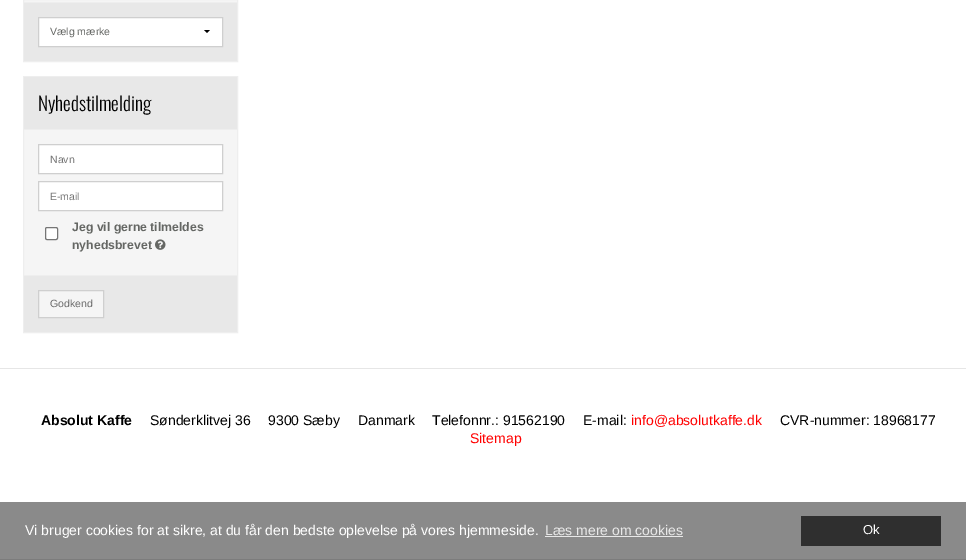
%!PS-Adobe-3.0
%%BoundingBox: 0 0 966 560
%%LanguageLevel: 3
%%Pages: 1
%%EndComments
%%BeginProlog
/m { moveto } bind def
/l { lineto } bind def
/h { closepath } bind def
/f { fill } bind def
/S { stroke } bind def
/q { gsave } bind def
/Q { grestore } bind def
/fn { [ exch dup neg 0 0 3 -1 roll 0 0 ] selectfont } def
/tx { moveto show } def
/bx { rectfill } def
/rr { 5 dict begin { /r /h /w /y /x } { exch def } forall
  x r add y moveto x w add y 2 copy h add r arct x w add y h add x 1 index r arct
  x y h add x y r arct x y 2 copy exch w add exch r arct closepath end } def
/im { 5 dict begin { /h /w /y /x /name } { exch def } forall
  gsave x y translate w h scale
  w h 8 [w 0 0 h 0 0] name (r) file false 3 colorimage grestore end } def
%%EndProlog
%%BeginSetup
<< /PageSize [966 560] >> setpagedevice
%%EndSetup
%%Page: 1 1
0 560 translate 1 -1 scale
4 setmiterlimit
1 setgray
0 0 966 560 bx
0.541 setgray
0 502 966 57 bx
0.961 setgray
24 0 213 2 bx
0.933 setgray
23.5 -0.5 214 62 rectstroke
0.91 setgray
24 3 213 58 bx
0.933 setgray
24 2 213 1 bx
1 setgray
39 18 183 28 bx
0 setgray
210 30 m 207 33 l 204 30 l h f
0.812 setgray
38.5 17.5 184 29 rectstroke
/LiberationSans-Regular 10.5 fn
0.396 0.404 0.392 setrgbcolor
(Vælg mærke) 50 35 tx
0.961 setgray
24 130 213 145 bx
0.933 setgray
23.5 76.5 214 256 rectstroke
0.91 setgray
24 77 213 52 bx
0.933 setgray
24 129 213 1 bx
/Oswald-Light 19.25 fn
0 setgray
(Nyhedstilmelding) 38 111 tx
1 setgray
38.5 144.5 m 222.5 144.5 l 222.5 173.5 l 38.5 173.5 l h q f Q
0.812 setgray
S
/LiberationSans-Regular 10.5 fn
0.459 setgray
(Navn) 50 163 tx
1 setgray
38.5 181.5 m 222.5 181.5 l 222.5 210.5 l 38.5 210.5 l h q f Q
0.812 setgray
S
0.459 setgray
(E-mail) 50 200 tx
1 setgray
45.5 227.5 12 12 1.5 rr q f Q
0.463 setgray
S
/LiberationSans-Bold 12.25 fn
0.396 0.404 0.392 setrgbcolor
(Jeg vil gerne tilmeldes) 72 231 tx
(nyhedsbrevet) 72 249 tx
(image0.raw) 155 239 11 11 im
0.91 setgray
24 276 213 56 bx
0.933 setgray
24 275 213 1 bx
0.961 setgray
38.5 290.5 m 103.5 290.5 l 103.5 317.5 l 38.5 317.5 l h q f Q
0.812 setgray
S
/LiberationSans-Regular 10.5 fn
0.424 setgray
(Godkend) 50 307 tx
0.902 setgray
0 368 966 1 bx
0.486 setgray
0 559 966 1 bx
/LiberationSans-Bold 14 fn
0 setgray
(Absolut Kaffe) 41 425 tx
/LiberationSans-Regular 14 fn
(Sønderklitvej 36) 150 425 tx
(9300 Sæby) 268 425 tx
(Danmark) 358 425 tx
(Telefonnr.: 91562190) 432 425 tx
(E-mail:) 583 425 tx
1 0 0 setrgbcolor
(info@absolutkaffe.dk) 631 425 tx
0 setgray
(CVR-nummer: 18968177) 780 425 tx
1 0 0 setrgbcolor
(Sitemap) 470 443 tx
1 setgray
(Vi bruger cookies for at sikre, at du får den bedste oplevelse på vores hjemmeside.) 25 535 tx
0.91 setgray
(Læs mere om cookies) 545 535 tx
545 536 138 1 bx
0.184 setgray
801 516 140 30 bx
/LiberationSans-Regular 13 fn
1 setgray
(Ok) 863 534 tx
showpage
%%EOF
